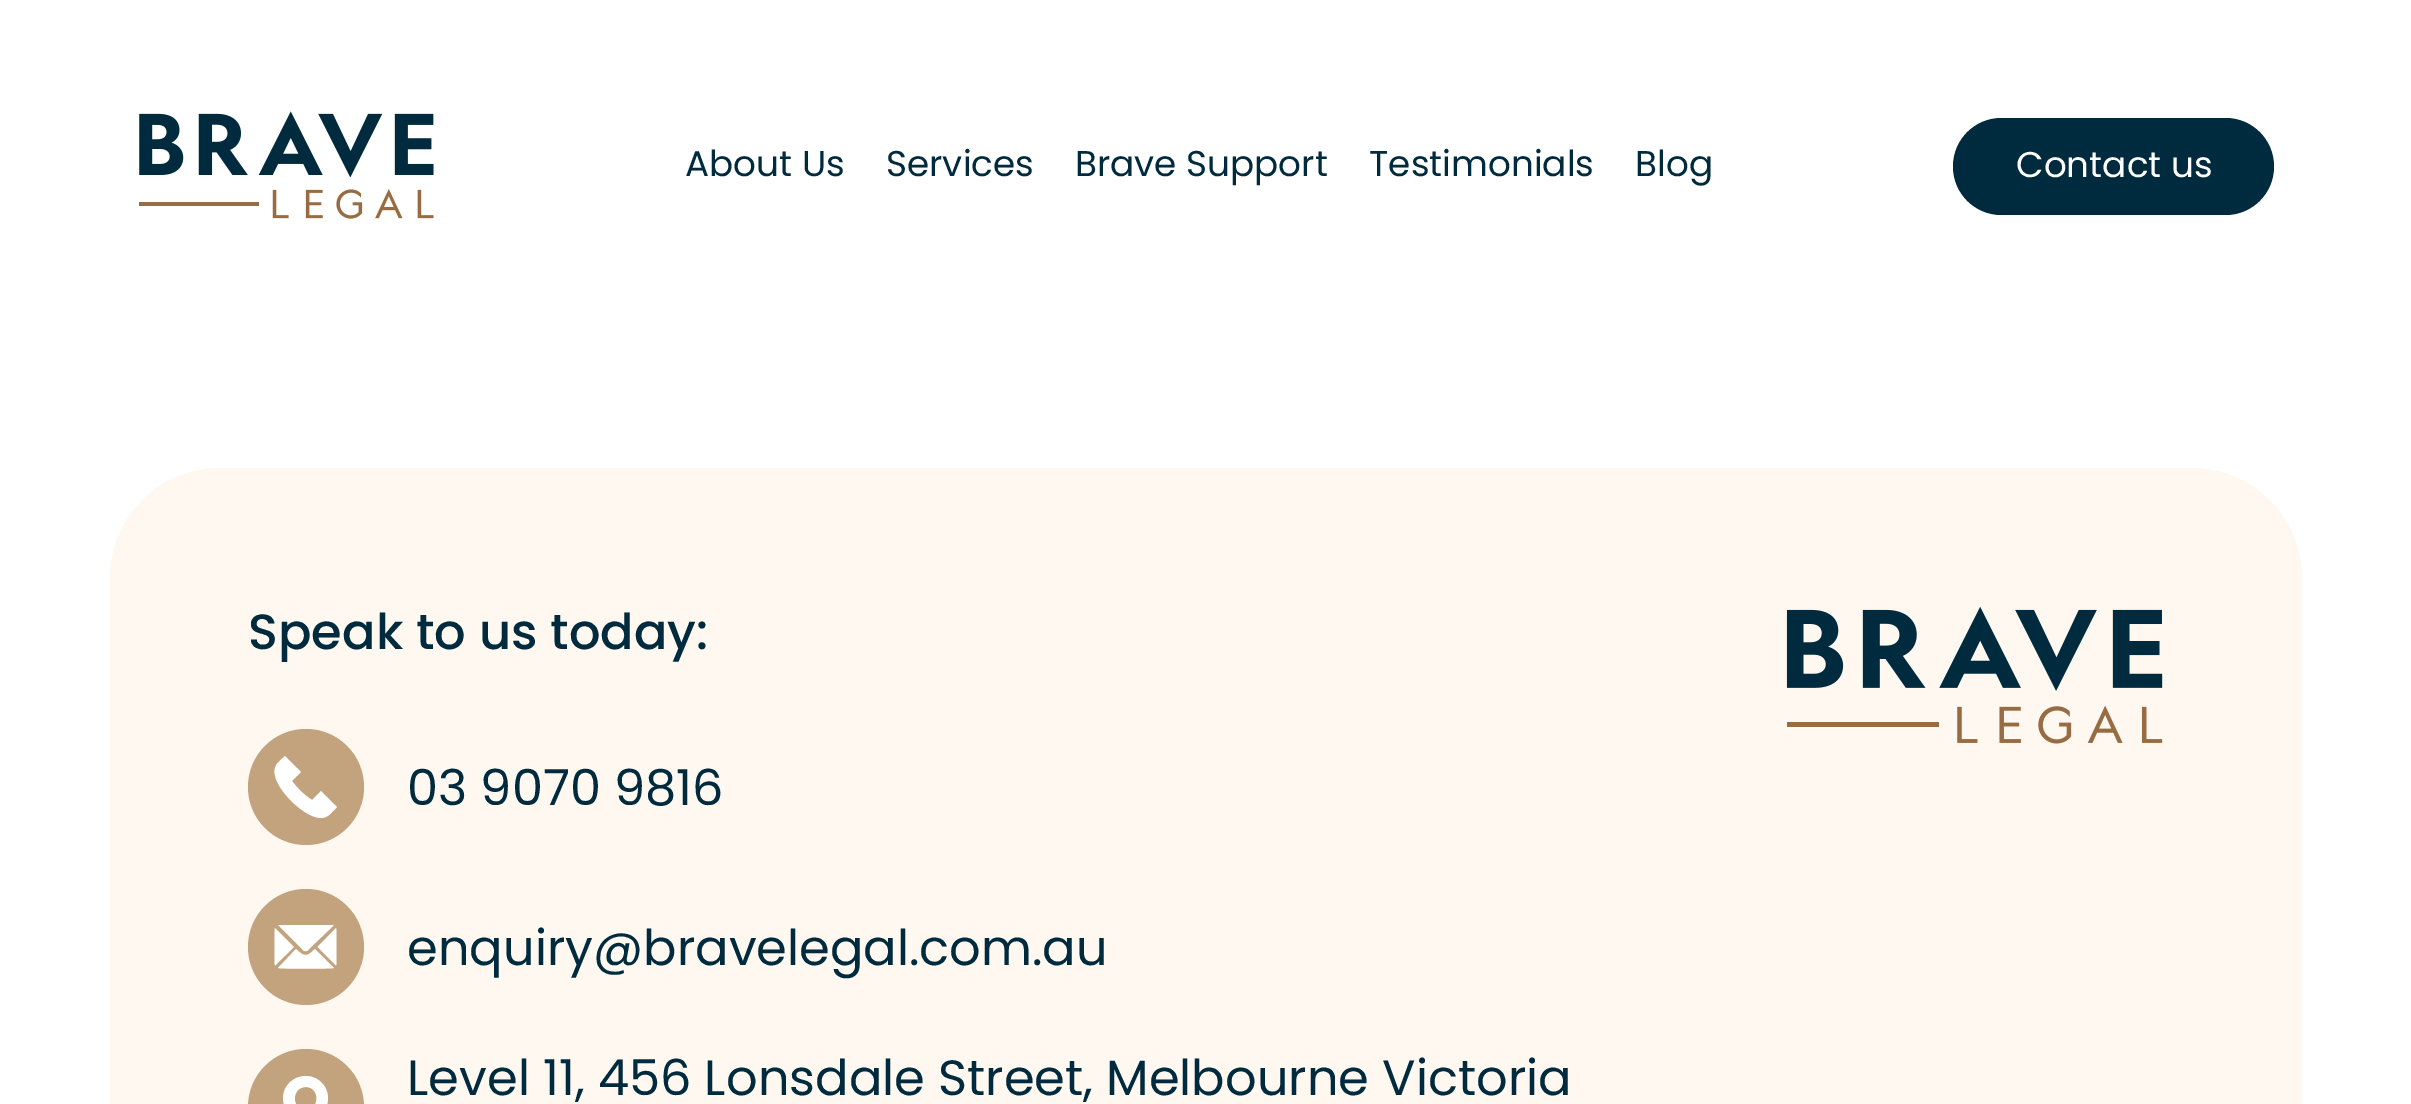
%!PS-Adobe-3.0
%%BoundingBox: 0 0 2411 1104
%%LanguageLevel: 3
%%Pages: 1
%%EndComments
%%BeginProlog
/m { moveto } bind def
/l { lineto } bind def
/c { curveto } bind def
/h { closepath } bind def
/f { fill } bind def
/fn { [ exch dup neg 0 0 3 -1 roll 0 0 ] selectfont } def
/tx { moveto show } def
/bx { rectfill } def
/ci { newpath 0 360 arc closepath } def
/rr { 5 dict begin { /r /h /w /y /x } { exch def } forall
  x r add y moveto x w add y 2 copy h add r arct x w add y h add x 1 index r arct
  x y h add x y r arct x y 2 copy exch w add exch r arct closepath end } def
/im { 5 dict begin { /h /w /y /x /name } { exch def } forall
  gsave x y translate w h scale
  w h 8 [w 0 0 h 0 0] name (r) file false 3 colorimage grestore end } def
%%EndProlog
%%BeginSetup
<< /PageSize [2411 1104] >> setpagedevice
%%EndSetup
%%Page: 1 1
0 1104 translate 1 -1 scale
4 setmiterlimit
1 setgray
0 0 2411 1104 bx
(image0.raw) 139 111 295 108 im
/Poppins-Regular 35.75 fn
0 0.165 0.239 setrgbcolor
(About Us) 685 176 tx
(Services) 886 176 tx
(Brave Support) 1075 176 tx
(Testimonials) 1369 176 tx
(Blog) 1635 176 tx
1953 118 321 97 48.5 rr f
1 setgray
(Contact us) 2016 177 tx
1 0.973 0.941 setrgbcolor
110 468 2192 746 110 rr f
/Poppins-Medium 49.5 fn
0 0.165 0.239 setrgbcolor
(Speak to us today:) 248 649 tx
0.761 0.639 0.49 setrgbcolor
306 787 58 ci f
1 setgray
321 818 m 303 818 270 784 275 768 c 276 763 282 759 285 756 c 301 772 l 292 781 l 297 788 304 795 312 800 c 321 791 l 337 807 l 332 812 328 818 321 818 c h f
/Poppins-Regular 49.5 fn
0 0.165 0.239 setrgbcolor
(03 9070 9816) 407 805 tx
0.761 0.639 0.49 setrgbcolor
306 947 58 ci f
1 setgray
336 928 m 317.5 947 l 336 965.5 l 336.5 963.5 l 336.5 930.5 l h f
331 925 m 280 925 l 278 925 l 302 949 l 304 952 307 952 309 949 c 334 925 l h f
275 928 m 274.5 930.5 l 274.5 963.5 l 275 965.5 l 294 947 l h f
315 949 m 307 957 304 957 296 949 c 278 968 l 280 969 331 969 334 968 c h f
0 0.165 0.239 setrgbcolor
(enquiry@bravelegal.com.au) 407 965 tx
0.761 0.639 0.49 setrgbcolor
248 1049 116 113 58 rr f
1 setgray
306 1076 m 293 1076 283 1086 283 1098 c 283 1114 303 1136 304 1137 c 305 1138 306 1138 307 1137 c 308 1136 328 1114 328 1098 c 328 1086 318 1076 306 1076 c h 306 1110 m 291 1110 291 1087 306 1087 c 320 1087 320 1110 306 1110 c h f
0 0.165 0.239 setrgbcolor
(Level 11, 456 Lonsdale Street, Melbourne Victoria) 407 1095 tx
(image1.raw) 1786 607 377 137 im
showpage
%%EOF
